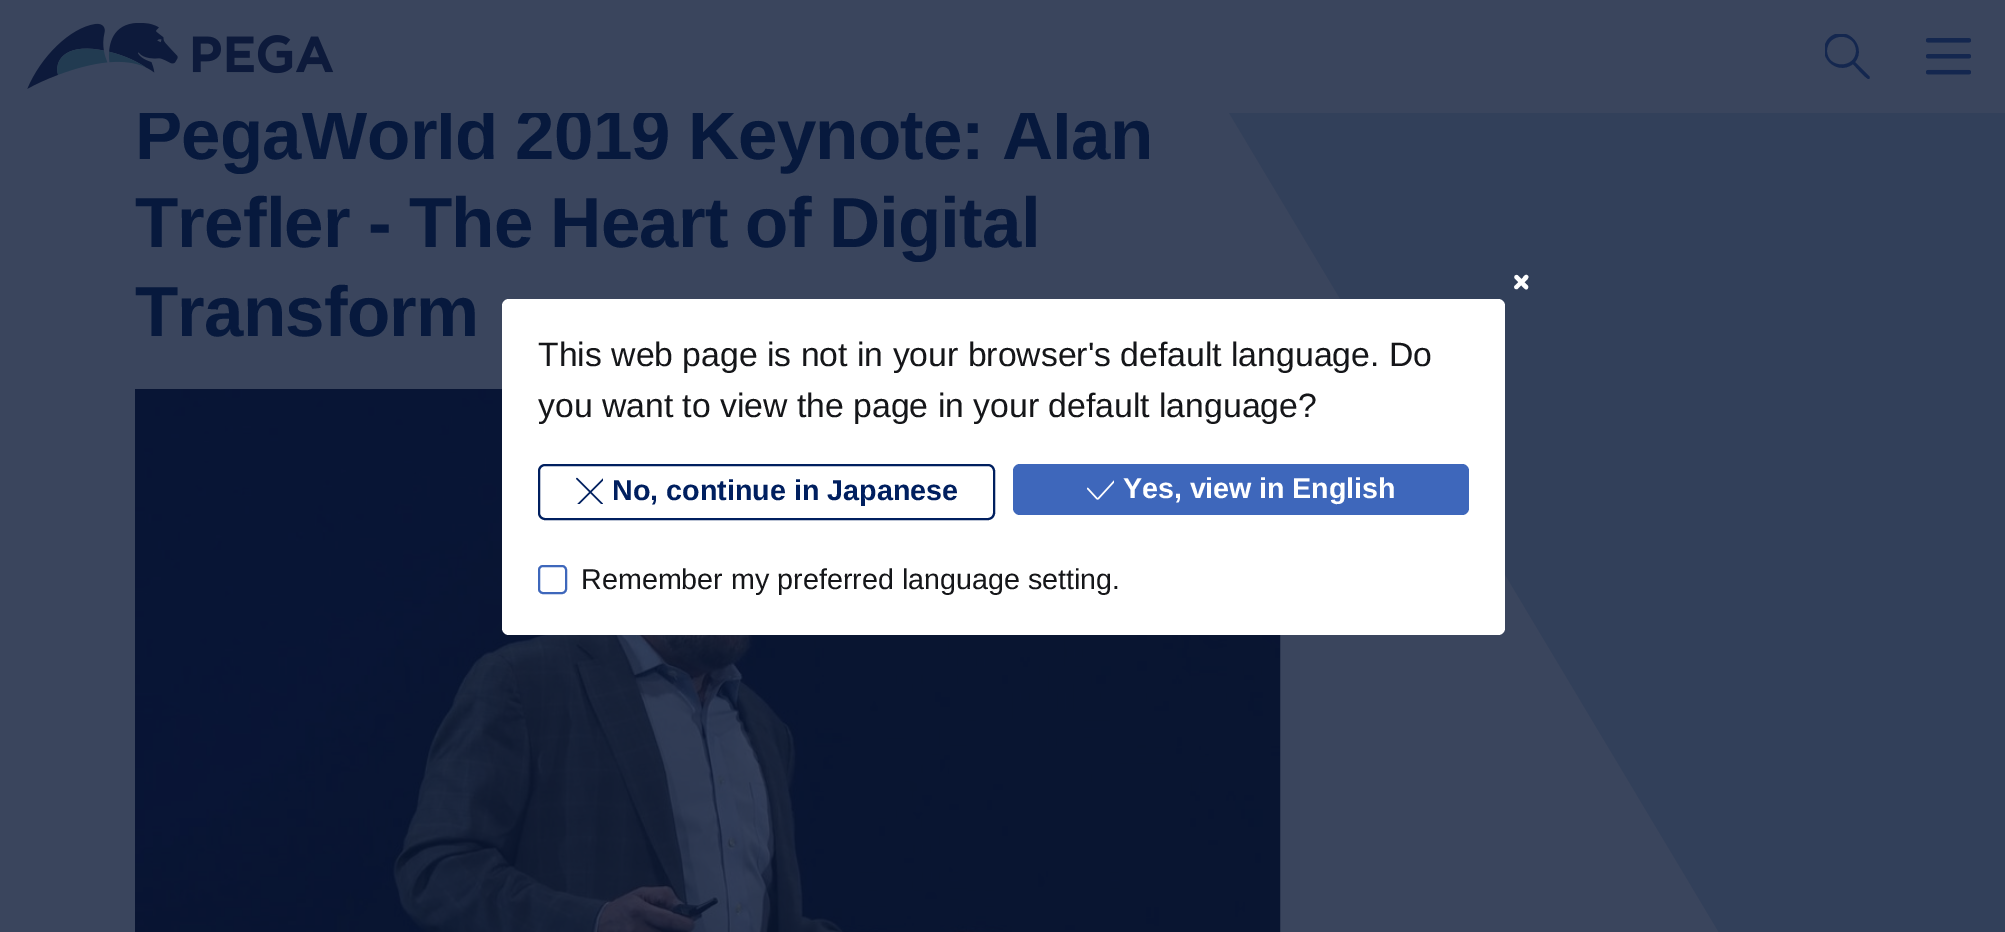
%!PS-Adobe-3.0
%%BoundingBox: 0 0 2005 932
%%LanguageLevel: 3
%%Pages: 1
%%EndComments
%%BeginProlog
/m { moveto } bind def
/l { lineto } bind def
/c { curveto } bind def
/h { closepath } bind def
/f { fill } bind def
/S { stroke } bind def
/q { gsave } bind def
/Q { grestore } bind def
/w { setlinewidth } bind def
/fn { [ exch dup neg 0 0 3 -1 roll 0 0 ] selectfont } def
/tx { moveto show } def
/bx { rectfill } def
/rr { 5 dict begin { /r /h /w /y /x } { exch def } forall
  x r add y moveto x w add y 2 copy h add r arct x w add y h add x 1 index r arct
  x y h add x y r arct x y 2 copy exch w add exch r arct closepath end } def
/im { 5 dict begin { /h /w /y /x /name } { exch def } forall
  gsave x y translate w h scale
  w h 8 [w 0 0 h 0 0] name (r) file false 3 colorimage grestore end } def
%%EndProlog
%%BeginSetup
<< /PageSize [2005 932] >> setpagedevice
%%EndSetup
%%Page: 1 1
0 932 translate 1 -1 scale
4 setmiterlimit
0.227 0.271 0.365 setrgbcolor
0 0 2005 932 bx
/LiberationSans-Bold 70.9 fn
0.027 0.098 0.239 setrgbcolor
135 159 m -1 0 32 -0.85 0 (PegaWorld 2019 Keynote: Alan) awidthshow
0.196 0.251 0.353 setrgbcolor
886 -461 m 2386 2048 l 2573 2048 l 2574 -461 l h eofill
0.227 0.271 0.365 setrgbcolor
139 0 1866 113 bx
(image0.raw) 27 23 307 66 im
q
1825 34 45 45 rectclip
0.078 0.153 0.31 setrgbcolor
1869 76 m 1855 62 l 1868 46 1845 23 1829 38 c 1814 54 1836 77 1853 64 c 1855 66 1867 80 1869 79 c 1870 78 1870 77 1869 76 c h 1827 51 m 1827 32 1856 32 1856 51 c 1856 69 1827 69 1827 51 c h f
Q
(image1.raw) 1926 38 45 37 im
0.027 0.098 0.239 setrgbcolor
135 247 m -0.75 0 32 -0.85 0 (Trefler - The Heart of Digital) awidthshow
135 336 m -0.85 0 (Transform) ashow
(image2.raw) 135 389 1146 543 im
1 setgray
502 299 1003 336 7 rr f
1518 275.5 m 1526 284 l 1527 285 1529 286 1528 288 c 1526.5 292 1522.5 286.5 1521.5 285.5 c 1514.5 278 l 1513.5 276 1516.5 274 1518 275.5 c h f
1515 285.5 m 1523 277.5 l 1524 276 1525 274.5 1527 275 c 1531 277 1525.5 281 1524.5 282 c 1517.5 289 l 1515 290 1513 287 1515 285.5 c h f
/LiberationSans-Regular 33.75 fn
0.082 0.086 0.098 setrgbcolor
(This web page is not in your browser's default language. Do) 538 366 tx
(you want to view the page in your default language?) 538 417 tx
0 0.122 0.373 setrgbcolor
2 w
539 465 455 54 6 rr S
(image3.raw) 576 477 27 27 im
/LiberationSans-Bold 28.7 fn
(No, continue in Japanese) 612 500 tx
0.243 0.404 0.733 setrgbcolor
1013 464 456 51 7 rr f
(image4.raw) 1087 480 27 20 im
1 setgray
1123 498 m -0.5 0 32 (Yes, view in English) widthshow
0.243 0.404 0.733 setrgbcolor
539 566 27 27 4 rr S
/LiberationSans-Regular 28.7 fn
0.082 0.086 0.098 setrgbcolor
(Remember my preferred language setting.) 581 589 tx
showpage
%%EOF
